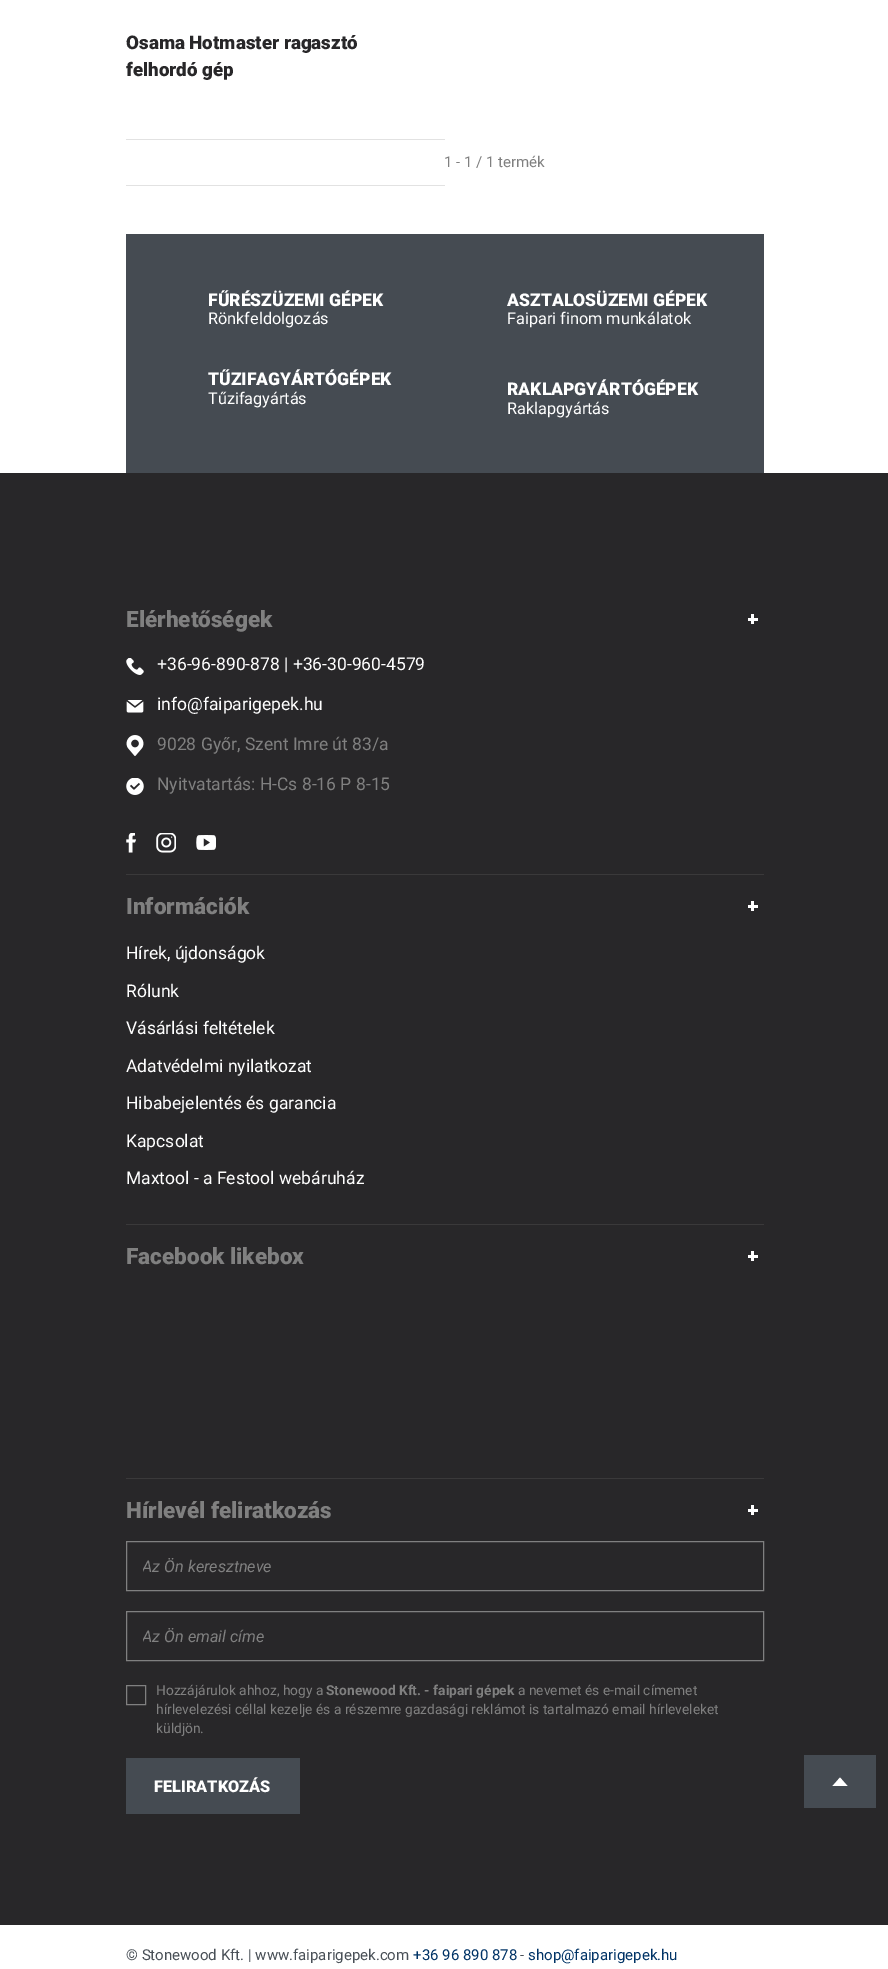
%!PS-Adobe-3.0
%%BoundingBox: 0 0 888 1969
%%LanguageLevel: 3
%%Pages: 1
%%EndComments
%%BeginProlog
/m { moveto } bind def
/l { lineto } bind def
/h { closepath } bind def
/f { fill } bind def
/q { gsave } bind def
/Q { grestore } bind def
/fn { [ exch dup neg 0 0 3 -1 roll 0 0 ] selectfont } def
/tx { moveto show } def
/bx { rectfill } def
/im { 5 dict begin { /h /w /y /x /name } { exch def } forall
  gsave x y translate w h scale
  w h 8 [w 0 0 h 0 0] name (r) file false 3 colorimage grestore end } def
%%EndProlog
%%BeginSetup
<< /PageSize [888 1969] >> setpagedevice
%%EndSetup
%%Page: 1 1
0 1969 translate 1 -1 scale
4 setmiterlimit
1 setgray
0 0 888 1969 bx
/Roboto-Black 18.75 fn
0.157 0.153 0.161 setrgbcolor
(Osama Hotmaster ragasztó) 126 49 tx
(felhordó gép) 126 76 tx
0.886 setgray
126 139 319 1 bx
126 185 319 1 bx
/Roboto-Regular 15 fn
0.502 setgray
(1 - 1 / 1 termék) 444 167 tx
0.271 0.294 0.322 setrgbcolor
126 234 638 239 bx
/Roboto-Black 17.5 fn
1 setgray
(FŰRÉSZÜZEMI GÉPEK) 208 306 tx
/Roboto-Regular 16.25 fn
(Rönkfeldolgozás) 208 324 tx
/Roboto-Black 17.5 fn
(ASZTALOSÜZEMI GÉPEK) 507 306 tx
/Roboto-Regular 16.25 fn
(Faipari finom munkálatok) 507 324 tx
/Roboto-Black 17.5 fn
(TŰZIFAGYÁRTÓGÉPEK) 208 385 tx
/Roboto-Regular 16.25 fn
(Tűzifagyártás) 208 404 tx
/Roboto-Black 17.5 fn
(RAKLAPGYÁRTÓGÉPEK) 507 395 tx
/Roboto-Regular 16.25 fn
(Raklapgyártás) 507 414 tx
0.157 0.153 0.161 setrgbcolor
0 473 888 1452 bx
0.227 0.224 0.227 setrgbcolor
126 874 638 1 bx
/Roboto-Black 22.5 fn
0.502 setgray
(Elérhetőségek) 126 627 tx
1 setgray
751 614 3 10 bx
748 618 10 3 bx
(image0.raw) 126 658 18 17 im
/Roboto-Regular 17.5 fn
(+36-96-890-878 | +36-30-960-4579) 157 670 tx
(image1.raw) 126 700 18 13 im
(info@faiparigepek.hu) 157 710 tx
(image2.raw) 126 735 18 21 im
0.502 setgray
(9028 Győr, Szent Imre út 83/a) 157 750 tx
(image3.raw) 126 778 18 17 im
(Nyitvatartás: H-Cs 8-16 P 8-15) 157 790 tx
(image4.raw) 126 833 10 20 im
(image5.raw) 156 833 20 20 im
(image6.raw) 196 835 20 15 im
0.227 0.224 0.227 setrgbcolor
126 1224 638 1 bx
/Roboto-Black 22.5 fn
0.502 setgray
(Információk) 126 914 tx
1 setgray
751 901 3 10 bx
748 905 10 3 bx
/Roboto-Regular 17.5 fn
(Hírek, újdonságok) 126 959 tx
(Rólunk) 126 997 tx
(Vásárlási feltételek) 126 1034 tx
(Adatvédelmi nyilatkozat) 126 1072 tx
(Hibabejelentés és garancia) 126 1109 tx
(Kapcsolat) 126 1147 tx
(Maxtool - a Festool webáruház) 126 1184 tx
0.227 0.224 0.227 setrgbcolor
126 1478 638 1 bx
/Roboto-Black 22.5 fn
0.502 setgray
(Facebook likebox) 126 1264 tx
1 setgray
751 1251 3 10 bx
748 1255 10 3 bx
0.502 setgray
(Hírlevél feliratkozás) 126 1518 tx
1 setgray
751 1505 3 10 bx
748 1509 10 3 bx
0.502 setgray
126.5 1541.5 637 49 rectstroke
q
143 1558 605 18 rectclip
/Roboto-Italic 16.25 fn
(Az Ön keresztneve) 142 1572 tx
Q
126.5 1611.5 637 49 rectstroke
q
143 1628 605 18 rectclip
/Roboto-Italic 16.25 fn
(Az Ön email címe) 142 1642 tx
Q
126.5 1685.5 19 19 rectstroke
/Roboto-Regular 13.75 fn
(Hozzájárulok ahhoz, hogy a) 156 1695 tx
/Roboto-Bold 13.75 fn
(Stonewood Kft. - faipari gépek) 326 1695 tx
/Roboto-Regular 13.75 fn
(a nevemet és e-mail címemet) 518 1695 tx
(hírlevelezési céllal kezelje és a részemre gazdasági reklámot is tartalmazó email hírleveleket) 156 1714 tx
(küldjön.) 156 1733 tx
0.271 0.294 0.322 setrgbcolor
126 1758 174 56 bx
/Roboto-Black 16.25 fn
1 setgray
(FELIRATKOZÁS) 154 1792 tx
0.271 0.294 0.322 setrgbcolor
804 1755 72 53 bx
1 setgray
847.5 1786 m 840 1777.5 l 832.5 1786 l h f
/Roboto-Regular 15 fn
0.286 0.314 0.341 setrgbcolor
(© Stonewood Kft. | www.faiparigepek.com) 126 1960 tx
0 0.2 0.4 setrgbcolor
(+36 96 890 878) 413 1960 tx
0.286 0.314 0.341 setrgbcolor
(-) 520 1960 tx
0 0.2 0.4 setrgbcolor
(shop@faiparigepek.hu) 528 1960 tx
showpage
%%EOF
